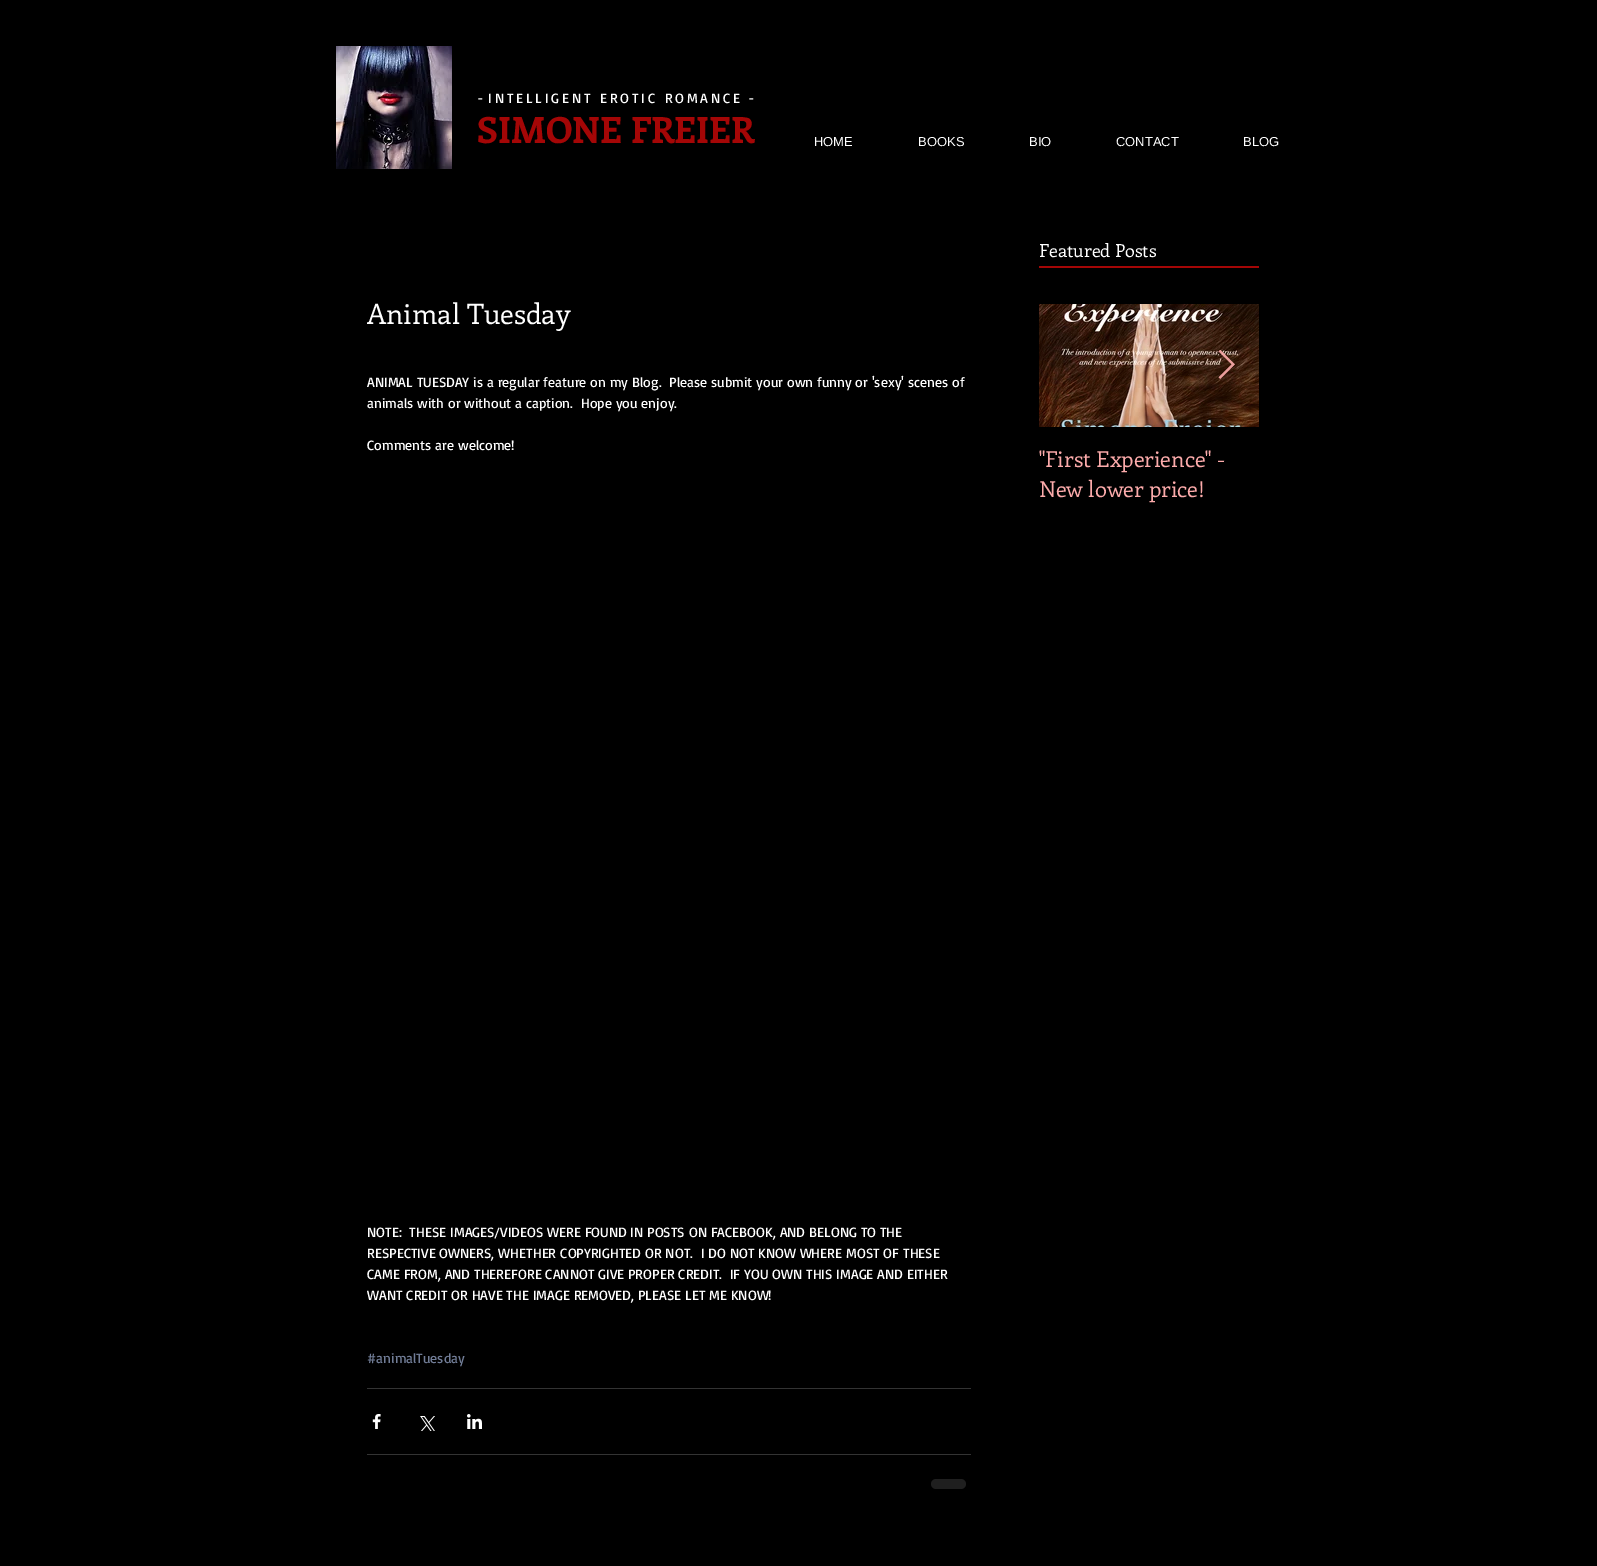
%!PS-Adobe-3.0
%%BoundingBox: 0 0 1597 1566
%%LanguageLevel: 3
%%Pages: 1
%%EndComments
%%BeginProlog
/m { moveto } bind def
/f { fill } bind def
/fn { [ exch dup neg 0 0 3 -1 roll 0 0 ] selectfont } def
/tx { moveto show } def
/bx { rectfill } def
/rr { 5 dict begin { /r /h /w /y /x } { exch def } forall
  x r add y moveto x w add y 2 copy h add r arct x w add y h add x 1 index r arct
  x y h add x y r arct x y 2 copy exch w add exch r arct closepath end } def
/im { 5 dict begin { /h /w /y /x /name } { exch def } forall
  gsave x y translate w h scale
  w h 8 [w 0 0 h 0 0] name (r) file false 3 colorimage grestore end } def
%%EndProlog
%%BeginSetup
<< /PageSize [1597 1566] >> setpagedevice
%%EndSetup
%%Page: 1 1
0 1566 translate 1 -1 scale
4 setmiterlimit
0 setgray
0 0 1597 1566 bx
(image0.raw) 336 46 116 123 im
/Basic-Regular 14 fn
1 setgray
(-) 477 103 tx
488 103 m 2.8 0 (INTELLIGENT EROTIC ROMANCE) ashow
(-) 748 103 tx
/Enriqueta-Bold 36 fn
0.643 0.024 0.024 setrgbcolor
(SIMONE FREIER) 477 143 tx
/LiberationSans-Regular 13 fn
1 setgray
(HOME) 814 146 tx
(BOOKS) 918 146 tx
(BIO) 1029 146 tx
(CONTACT) 1116 146 tx
(BLOG) 1243 146 tx
/Enriqueta-Regular 18 fn
(Featured Posts) 1039 257 tx
0.643 0.024 0.024 setrgbcolor
1039 266 220 2 bx
/Enriqueta-Regular 28 fn
1 setgray
(Animal Tuesday) 367 324 tx
/Basic-Regular 14 fn
(ANIMAL TUESDAY is a regular feature on my Blog.  Please submit your own funny or 'sexy' scenes of) 367 387 tx
(animals with or without a caption.  Hope you enjoy.) 367 408 tx
(Comments are welcome!) 367 450 tx
(NOTE:  THESE IMAGES/VIDEOS WERE FOUND IN POSTS ON FACEBOOK, AND BELONG TO THE) 367 1237 tx
(RESPECTIVE OWNERS, WHETHER COPYRIGHTED OR NOT.  I DO NOT KNOW WHERE MOST OF THESE) 367 1258 tx
(CAME FROM, AND THEREFORE CANNOT GIVE PROPER CREDIT.  IF YOU OWN THIS IMAGE AND EITHER) 367 1279 tx
(WANT CREDIT OR HAVE THE IMAGE REMOVED, PLEASE LET ME KNOW!) 367 1300 tx
0.443 0.49 0.592 setrgbcolor
(#animalTuesday) 367 1363 tx
0.2 setgray
367 1388 604 1 bx
(image1.raw) 372 1414 9 15 im
(image2.raw) 420 1416 15 15 im
(image3.raw) 467 1414 15 15 im
367 1454 604 1 bx
0.122 setgray
931 1479 35 10 5 rr f
(image5.raw) 1039 304 220 123 im
(image4.raw) 1218 350 17 29 im
/Enriqueta-Regular 22 fn
0.988 0.671 0.671 setrgbcolor
("First Experience" -) 1039 467 tx
(New lower price!) 1039 497 tx
showpage
%%EOF
